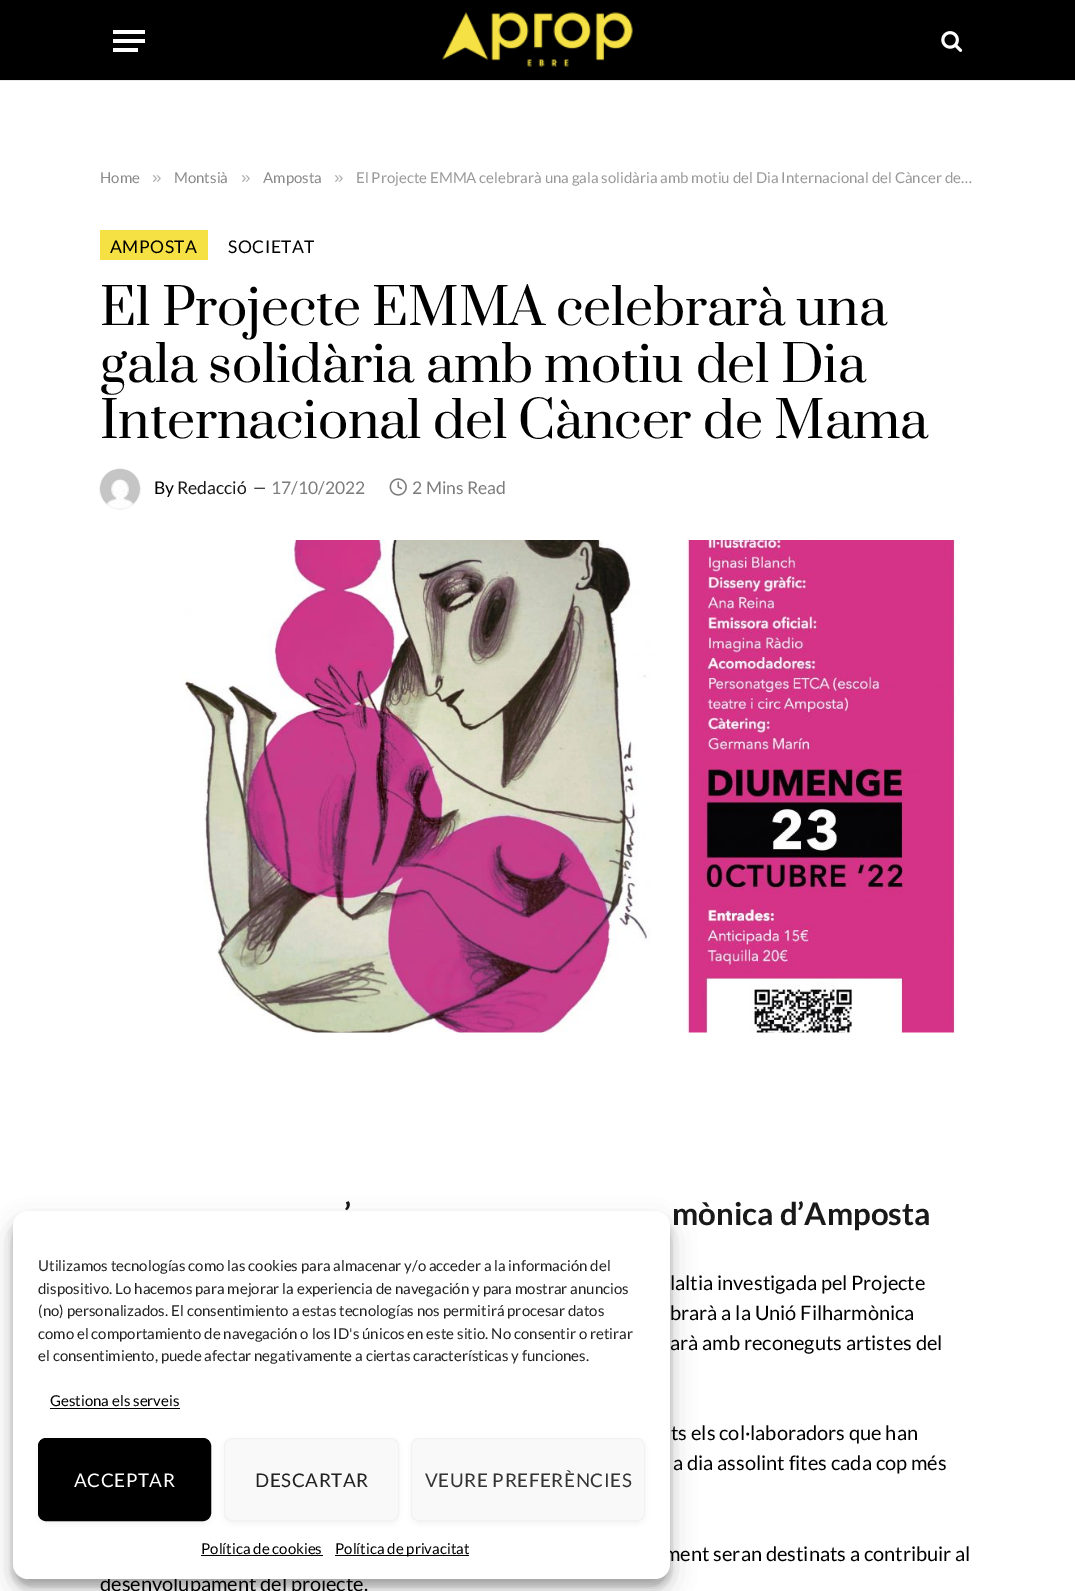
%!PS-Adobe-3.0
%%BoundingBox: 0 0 1075 1591
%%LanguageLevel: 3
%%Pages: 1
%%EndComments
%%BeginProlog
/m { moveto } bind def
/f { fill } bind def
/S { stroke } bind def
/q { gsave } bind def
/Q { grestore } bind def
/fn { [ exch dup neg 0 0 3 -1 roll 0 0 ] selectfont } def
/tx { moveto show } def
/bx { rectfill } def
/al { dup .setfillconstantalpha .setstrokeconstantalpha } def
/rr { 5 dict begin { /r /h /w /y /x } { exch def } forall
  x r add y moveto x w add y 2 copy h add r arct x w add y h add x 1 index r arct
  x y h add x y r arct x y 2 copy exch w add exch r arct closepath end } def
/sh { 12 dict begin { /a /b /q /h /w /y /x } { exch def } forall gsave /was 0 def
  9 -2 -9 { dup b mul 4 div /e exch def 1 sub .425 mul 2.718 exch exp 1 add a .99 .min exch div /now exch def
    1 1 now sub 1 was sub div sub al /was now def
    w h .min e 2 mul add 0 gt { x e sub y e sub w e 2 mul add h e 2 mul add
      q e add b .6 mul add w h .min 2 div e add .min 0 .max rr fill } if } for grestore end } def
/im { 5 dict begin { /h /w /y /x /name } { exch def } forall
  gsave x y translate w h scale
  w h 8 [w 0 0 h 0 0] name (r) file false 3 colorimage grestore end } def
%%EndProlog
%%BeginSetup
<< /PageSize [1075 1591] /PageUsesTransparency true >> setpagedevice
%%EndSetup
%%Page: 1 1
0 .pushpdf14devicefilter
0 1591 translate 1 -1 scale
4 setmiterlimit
1 setgray
0 0 1075 1591 bx
0 setgray
0 0 1075 80 bx
0.91 setgray
0 80 1075 1 bx
1 setgray
113 48 25 4 bx
113 30 32 4 bx
113 39 32 4 bx
(image0.raw) 442 12 191 55 im
(image1.raw) 941 31 22 21 im
/Lato-Regular 15 fn
0.541 setgray
(Home) 100 183 tx
/LiberationSans-Regular 17 fn
0.678 setgray
(») 152 183 tx
/Lato-Regular 15 fn
0.541 setgray
(Montsià) 174 183 tx
/LiberationSans-Regular 17 fn
0.678 setgray
(») 241 183 tx
/Lato-Regular 15 fn
0.541 setgray
(Amposta) 263 183 tx
/LiberationSans-Regular 17 fn
0.678 setgray
(») 334 183 tx
/Lato-Regular 15 fn
0.6 setgray
(El Projecte EMMA celebrarà una gala solidària amb motiu del Dia Internacional del Càncer de…) 356 183 tx
0.965 0.882 0.271 setrgbcolor
100 230 108 30 1 rr f
/Lato-Regular 17.5 fn
0 setgray
110 253 m 0.5 0 (AMPOSTA) ashow
228 253 m 0.5 0 (SOCIETAT) ashow
/Prata-Regular 50 fn
100 325 m -0.25 0 (El Projecte EMMA celebrarà una) ashow
100 382 m -0.25 0 (gala solidària amb motiu del Dia) ashow
100 438 m -0.25 0 (Internacional del Càncer de Mama) ashow
100 469 40 40 20 0.5 0.2 sh
(image2.raw) 100 469 40 40 im
/Lato-Regular 17.5 fn
(By) 154 494 tx
0.098 setgray
(Redacció) 177 494 tx
/Lato-Regular 16 fn
0 setgray
(—) 253 493 tx
/Lato-Regular 17.5 fn
0.486 setgray
(17/10/2022) 271 494 tx
(image3.raw) 389 478 18 18 im
(2 Mins Read) 412 494 tx
(image4.raw) 179 540 776 493 im
/Lato-Bold 31.25 fn
0.098 setgray
(’) 344 1225 tx
(mònica d’Amposta) 672 1225 tx
/Lato-Regular 20 fn
0 setgray
(laltia investigada pel Projecte) 670 1290 tx
(brarà a la Unió Filharmònica) 670 1320 tx
(arà amb reconeguts artistes del) 670 1350 tx
(ts els col·laboradors que han) 671 1440 tx
(a dia assolint fites cada cop més) 673 1470 tx
(ment seran destinats a contribuir al) 664 1561 tx
(desenvolupament del projecte.) 100 1591 tx
13 1219 657 367 15 4 0.23 sh
13 1224 657 367 15 12.5 0.19 sh
1 setgray
13 1211 657 368 15 rr f
/Lato-Regular 15 fn
0.133 setgray
(Utilizamos tecnologías como las cookies para almacenar y/o acceder a la información del) 38 1271 tx
(dispositivo. Lo hacemos para mejorar la experiencia de navegación y para mostrar anuncios) 38 1294 tx
(\(no\) personalizados. El consentimiento a estas tecnologías nos permitirá procesar datos) 38 1316 tx
(como el comportamiento de navegación o los ID's únicos en este sitio. No consentir o retirar) 38 1339 tx
(el consentimiento, puede afectar negativamente a ciertas características y funciones.) 38 1361 tx
0 setgray
(Gestiona els serveis) 50 1406 tx
50 1408 130 1 bx
43 1445 163 74 2.5 4.5 0.16 sh
38.5 1438.5 172 82 7.5 rr q f Q
S
/Lato-Regular 18.75 fn
1 setgray
74 1487 m 0.6 0 (ACCEPTAR) ashow
0 setgray
229 1445 165 74 2.5 4.5 0.16 sh
0.976 setgray
224.5 1438.5 174 82 7.5 rr q f Q
0.949 setgray
S
0.133 setgray
255 1487 m 0.6 0 (DESCARTAR) ashow
0 setgray
416 1445 224 74 2.5 4.5 0.16 sh
0.976 setgray
411.5 1438.5 233 82 7.5 rr q f Q
0.949 setgray
S
0.2 setgray
425 1487 m 0.6 0 (VEURE PREFERÈNCIES) ashow
/Lato-Regular 15 fn
0 setgray
(Política de cookies) 201 1554 tx
201 1555 122 1 bx
335 1555 134 1 bx
(Política de privacitat) 335 1554 tx
.poppdf14devicefilter showpage
%%EOF
